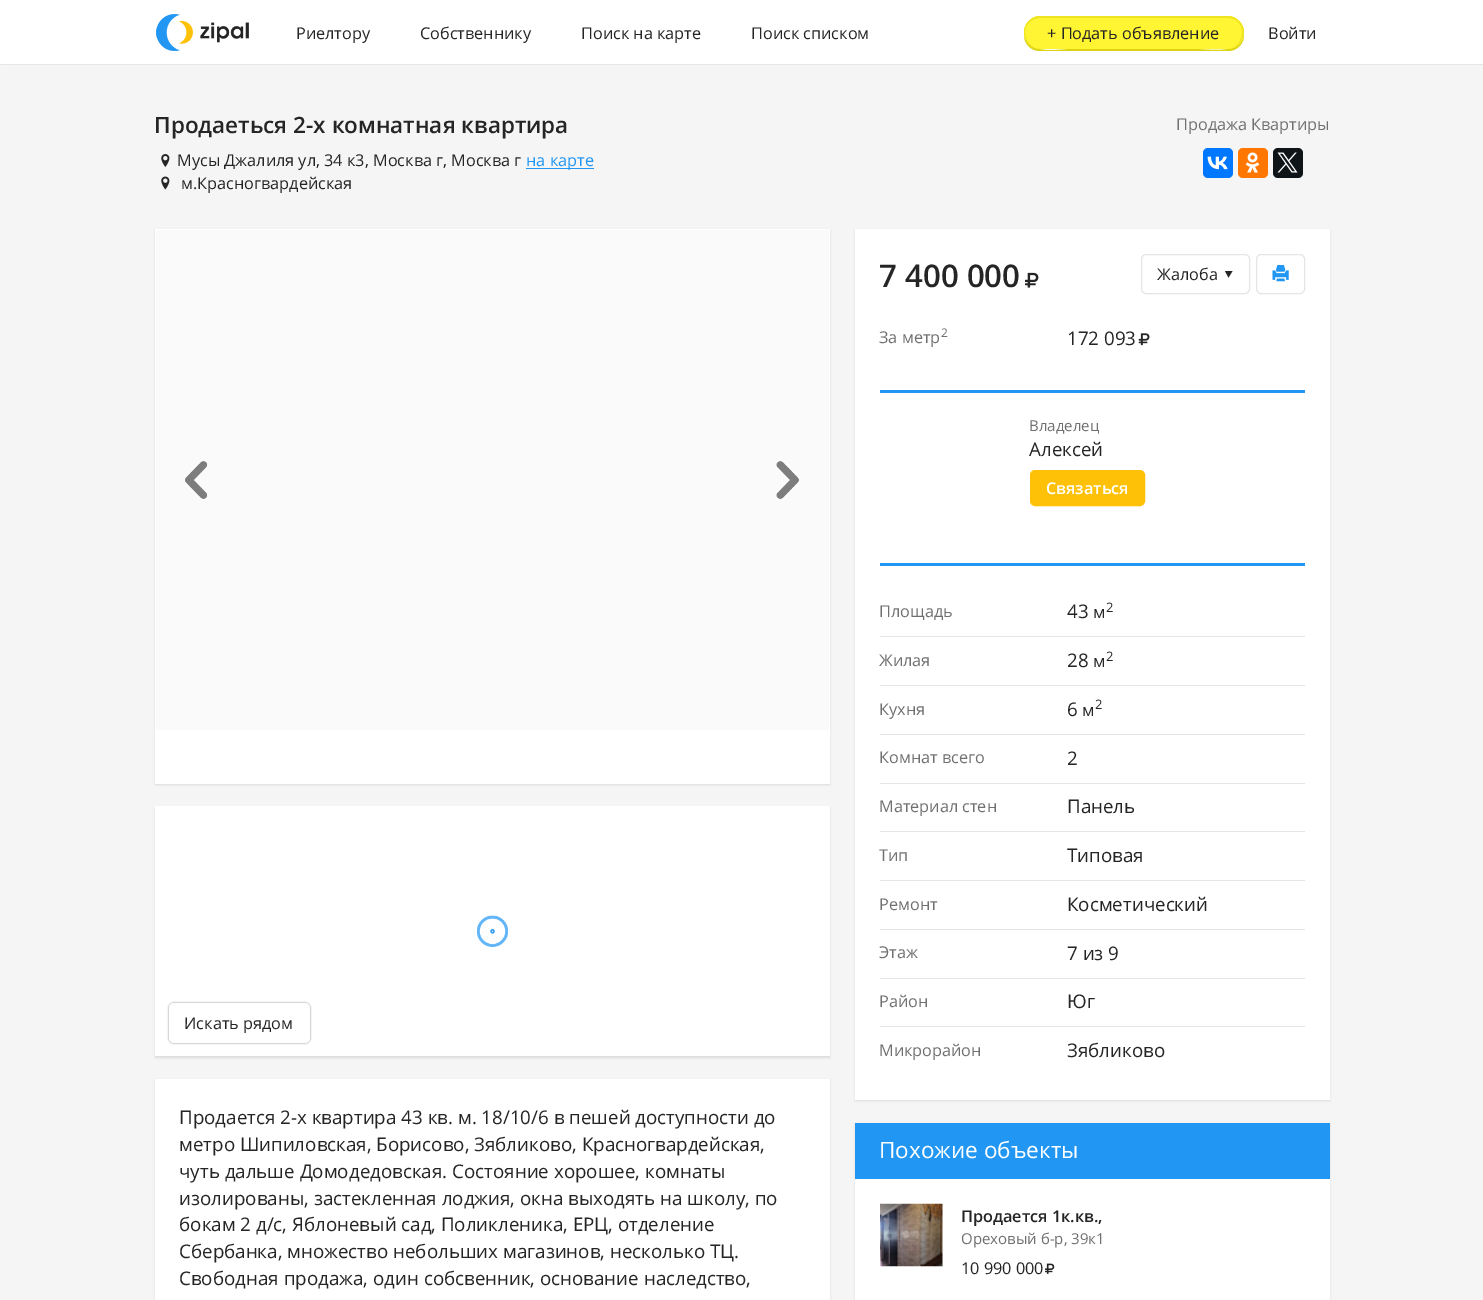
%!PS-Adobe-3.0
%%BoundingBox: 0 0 1483 1300
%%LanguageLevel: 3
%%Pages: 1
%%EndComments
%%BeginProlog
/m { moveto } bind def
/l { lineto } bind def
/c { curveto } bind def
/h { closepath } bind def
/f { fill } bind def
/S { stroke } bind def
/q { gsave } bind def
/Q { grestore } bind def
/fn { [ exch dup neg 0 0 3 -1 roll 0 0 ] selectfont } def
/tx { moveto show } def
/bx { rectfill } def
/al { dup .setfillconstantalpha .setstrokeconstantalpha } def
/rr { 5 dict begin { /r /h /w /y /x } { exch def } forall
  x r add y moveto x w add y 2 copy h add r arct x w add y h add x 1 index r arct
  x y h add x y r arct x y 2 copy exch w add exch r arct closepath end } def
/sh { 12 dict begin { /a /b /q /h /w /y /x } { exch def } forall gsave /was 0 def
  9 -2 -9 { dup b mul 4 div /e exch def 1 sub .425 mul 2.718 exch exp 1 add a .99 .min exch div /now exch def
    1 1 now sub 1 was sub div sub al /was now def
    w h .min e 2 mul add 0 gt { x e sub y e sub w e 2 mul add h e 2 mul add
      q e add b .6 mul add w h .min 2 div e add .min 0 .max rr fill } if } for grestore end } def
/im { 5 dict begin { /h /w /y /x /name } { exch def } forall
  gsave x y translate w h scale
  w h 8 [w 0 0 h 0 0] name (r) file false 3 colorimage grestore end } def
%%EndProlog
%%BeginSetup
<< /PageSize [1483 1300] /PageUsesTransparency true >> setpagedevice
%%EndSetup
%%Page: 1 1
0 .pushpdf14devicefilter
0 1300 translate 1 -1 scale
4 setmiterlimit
0.961 setgray
0 0 1483 1300 bx
1 setgray
0 0 1483 65 bx
0.898 setgray
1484 65 m 0 65 l 1 64 l 1482 64 l h f
(image0.raw) 156 14 93 37 im
/OpenSans-Regular 16.25 fn
0.145 setgray
(Риелтору) 296 39 tx
(Собственнику) 420 39 tx
(Поиск на карте) 581 39 tx
(Поиск списком) 751 39 tx
0.867 0.827 0.063 setrgbcolor
1024 35 m 1024 44 1031 51 1040 51 c 1228 51 l 1237 51 1244 44 1244 35 c 1244 32 l 1244 56 1208 49 1196 49 c 1071 49 l 1060 49 1028 56 1024 35 c h f
1 0.961 0.196 setrgbcolor
1024 16 220 33 16.5 rr f
0.933 0.894 0.129 setrgbcolor
1040 16 m 1228 16 l 1236 16 1244 24 1244 32 c 1244 41 1236 49 1228 49 c 1040 49 l 1031 49 1024 41 1024 32 c 1024 24 1031 16 1040 16 c h 1040 18 m 1228 18 l 1236 18 1242 24 1242 32 c 1242 41 1236 49 1228 49 c 1040 49 l 1032 49 1025 41 1025 32 c 1025 24 1032 18 1040 18 c h eofill
0.145 setgray
(+ Подать объявление) 1047 39 tx
(Войти) 1268 39 tx
/OpenSans-SemiBold 22.5 fn
(Продаеться 2-х комнатная квартира) 154 133 tx
/OpenSans-Regular 16.25 fn
0.439 setgray
(Продажа Квартиры) 1176 130 tx
0 0.467 1 setrgbcolor
1203 148 30 30 5 rr f
(image1.raw) 1207 156 21 14 im
1 0.467 0 setrgbcolor
1238 148 30 30 5 rr f
(image2.raw) 1245 152 15 21 im
0.059 0.078 0.098 setrgbcolor
1273 148 30 30 5 rr f
(image3.raw) 1277 152 21 21 im
(image4.raw) 161 154 9 13 im
0.145 setgray
(Мусы Джалиля ул, 34 к3, Москва г, Москва г) 177 166 tx
0.129 0.588 0.953 setrgbcolor
526 168 68 1 bx
(на карте) 526 166 tx
(image5.raw) 161 176 9 14 im
0.145 setgray
(м.Красногвардейская) 181 189 tx
0 setgray
155 230 675 555 0 1 0.1 sh
1 setgray
155 229 675 555 bx
0.98 setgray
156 230 673 500 bx
(image6.raw) 185 461 23 38 im
(image7.raw) 776 461 23 38 im
0 setgray
155 808 675 250 0 1 0.1 sh
1 setgray
155 806 675 250 bx
(image8.raw) 477 915 31 32 im
0 setgray
169 1003 141 40 5 1 0.5 sh
1 setgray
169 1003 141 40 5 rr f
0.145 setgray
(Искать рядом) 184 1029 tx
0 setgray
155 1080 675 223 0 1 0.1 sh
1 setgray
155 1079 675 221 bx
/OpenSans-Regular 18.75 fn
0.145 setgray
(Продается 2-х квартира 43 кв. м. 18/10/6 в пешей доступности до) 179 1124 tx
(метро Шипиловская, Борисово, Зябликово, Красногвардейская,) 179 1151 tx
(чуть дальше Домодедовская. Состояние хорошее, комнаты) 179 1178 tx
(изолированы, застекленная лоджия, окна выходять на школу, по) 179 1205 tx
(бокам 2 д/с, Яблоневый сад, Поликленика, ЕРЦ, отделение) 179 1231 tx
(Сбербанка, множество небольших магазинов, несколько ТЦ.) 179 1258 tx
(Свободная продажа, один собсвенник, основание наследство,) 179 1285 tx
0 setgray
855 230 475 871 0 1 0.1 sh
1 setgray
855 229 475 871 bx
/OpenSans-SemiBold 31.25 fn
0.145 setgray
(7 400 000) 879 287 tx
(image9.raw) 1025 272 14 16 im
0.898 setgray
1141.5 254.5 108 39 4.5 rr S
/OpenSans-Regular 16.25 fn
0.145 setgray
(Жалоба) 1157 280 tx
1232.5 271 m 1228.5 277.5 l 1225 271 l h f
0.898 setgray
1256.5 254.5 48 39 4.5 rr S
(image10.raw) 1272 265 17 17 im
0.439 setgray
(За метр) 879 343 tx
/OpenSans-Regular 12 fn
(2) 941 337 tx
/OpenSans-Regular 18.75 fn
0.145 setgray
(172 093) 1067 345 tx
(image11.raw) 1138 333 12 13 im
0.129 0.588 0.953 setrgbcolor
880 390 425 3 bx
880 563 425 3 bx
/OpenSans-Regular 15 fn
0.439 setgray
(Владелец) 1029 431 tx
/OpenSans-Regular 18.75 fn
0.145 setgray
(Алексей) 1029 456 tx
1 0.757 0.027 setrgbcolor
1030.5 470.5 114 35 4.5 rr q f Q
S
/OpenSans-SemiBold 16.25 fn
1 setgray
(Связаться) 1046 494 tx
0.898 setgray
880 636 425 1 bx
/OpenSans-Regular 16.25 fn
0.439 setgray
(Площадь) 879 617 tx
/OpenSans-Regular 18.75 fn
0.145 setgray
(43) 1067 618 tx
/OpenSans-Regular 17 fn
(м) 1093 618 tx
/OpenSans-Regular 13 fn
(2) 1106 612 tx
0.898 setgray
880 685 425 1 bx
/OpenSans-Regular 16.25 fn
0.439 setgray
(Жилая) 879 666 tx
/OpenSans-Regular 18.75 fn
0.145 setgray
(28) 1067 667 tx
/OpenSans-Regular 17 fn
(м) 1093 667 tx
/OpenSans-Regular 13 fn
(2) 1106 661 tx
0.898 setgray
880 734 425 1 bx
/OpenSans-Regular 16.25 fn
0.439 setgray
(Кухня) 879 715 tx
/OpenSans-Regular 18.75 fn
0.145 setgray
(6) 1067 716 tx
/OpenSans-Regular 17 fn
(м) 1082 716 tx
/OpenSans-Regular 13 fn
(2) 1095 709 tx
0.898 setgray
880 783 425 1 bx
/OpenSans-Regular 16.25 fn
0.439 setgray
(Комнат всего) 879 763 tx
/OpenSans-Regular 18.75 fn
0.145 setgray
(2) 1067 765 tx
0.898 setgray
880 831 425 1 bx
/OpenSans-Regular 16.25 fn
0.439 setgray
(Материал стен) 879 812 tx
/OpenSans-Regular 18.75 fn
0.145 setgray
(Панель) 1067 813 tx
0.898 setgray
880 880 425 1 bx
/OpenSans-Regular 16.25 fn
0.439 setgray
(Тип) 879 861 tx
/OpenSans-Regular 18.75 fn
0.145 setgray
(Типовая) 1067 862 tx
0.898 setgray
880 929 425 1 bx
/OpenSans-Regular 16.25 fn
0.439 setgray
(Ремонт) 879 910 tx
/OpenSans-Regular 18.75 fn
0.145 setgray
(Косметический) 1067 911 tx
0.898 setgray
880 978 425 1 bx
/OpenSans-Regular 16.25 fn
0.439 setgray
(Этаж) 879 958 tx
/OpenSans-Regular 18.75 fn
0.145 setgray
(7 из 9) 1067 960 tx
0.898 setgray
880 1026 425 1 bx
/OpenSans-Regular 16.25 fn
0.439 setgray
(Район) 879 1007 tx
/OpenSans-Regular 18.75 fn
0.145 setgray
(Юг) 1067 1008 tx
/OpenSans-Regular 16.25 fn
0.439 setgray
(Микрорайон) 879 1056 tx
/OpenSans-Regular 18.75 fn
0.145 setgray
(Зябликово) 1067 1057 tx
0 setgray
855 1124 475 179 0 1 0.1 sh
1 setgray
855 1179 475 121 bx
0.129 0.588 0.953 setrgbcolor
855 1123 475 56 bx
/OpenSans-Regular 22.5 fn
1 setgray
(Похожие объекты) 879 1158 tx
(image12.raw) 880 1203 63 64 im
/OpenSans-SemiBold 16.25 fn
0.145 setgray
(Продается 1к.кв.,) 961 1222 tx
/OpenSans-Regular 15 fn
0.439 setgray
(Ореховый б-р, 39к1) 961 1244 tx
/OpenSans-Regular 16.25 fn
0.145 setgray
(10 990 000) 961 1274 tx
(image13.raw) 1045 1263 10 11 im
.poppdf14devicefilter showpage
%%EOF
